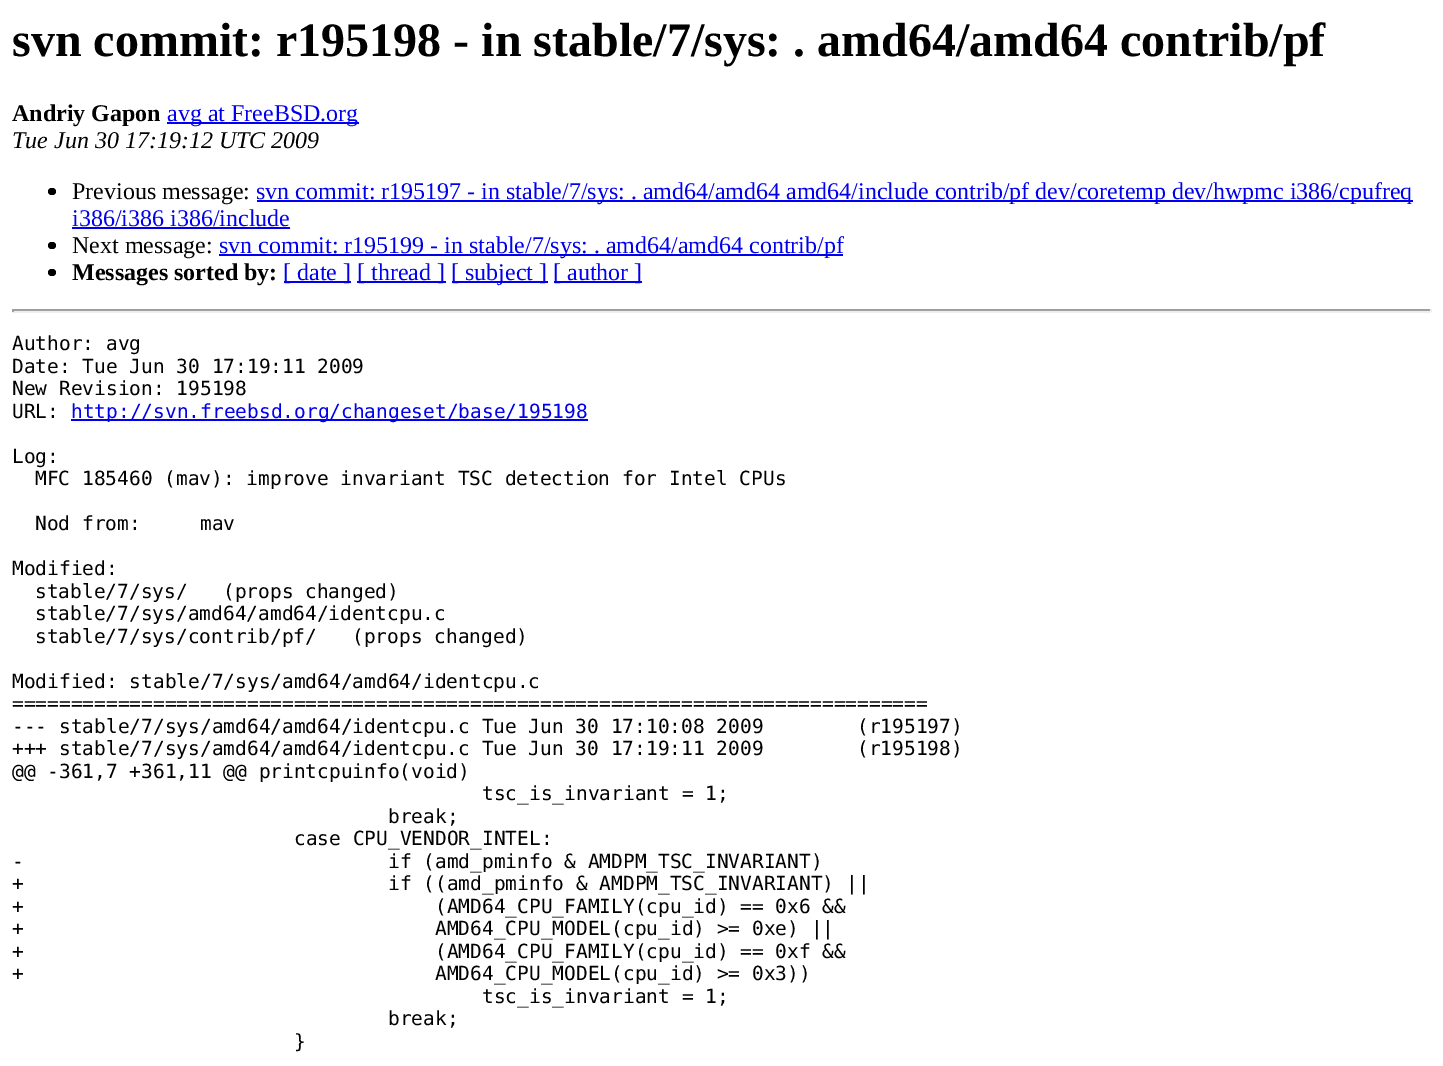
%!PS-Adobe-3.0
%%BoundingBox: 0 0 1443 1066
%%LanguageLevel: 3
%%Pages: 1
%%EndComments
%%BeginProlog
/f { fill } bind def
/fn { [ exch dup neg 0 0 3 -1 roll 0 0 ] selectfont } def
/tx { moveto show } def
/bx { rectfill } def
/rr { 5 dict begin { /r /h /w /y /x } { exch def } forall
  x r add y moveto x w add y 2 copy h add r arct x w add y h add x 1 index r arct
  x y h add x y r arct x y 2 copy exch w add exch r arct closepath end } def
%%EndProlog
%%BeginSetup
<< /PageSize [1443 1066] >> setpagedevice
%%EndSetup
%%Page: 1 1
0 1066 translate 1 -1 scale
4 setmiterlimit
1 setgray
0 0 1443 1066 bx
/LiberationSerif-Bold 48 fn
0 setgray
(svn commit: r195198 - in stable/7/sys: . amd64/amd64 contrib/pf) 12 56 tx
/LiberationSerif-Bold 24 fn
(Andriy Gapon) 12 121 tx
0 0 0.933 setrgbcolor
167 122 192 2 bx
/LiberationSerif-Regular 24 fn
(avg at FreeBSD.org) 167 121 tx
/LiberationSerif-Italic 24 fn
0 setgray
(Tue Jun 30 17:19:12 UTC 2009) 12 148 tx
48 188 8 7 3.5 rr f
/LiberationSerif-Regular 24 fn
(Previous message:) 72 199 tx
0 0 0.933 setrgbcolor
257 200 1156 2 bx
(svn commit: r195197 - in stable/7/sys: . amd64/amd64 amd64/include contrib/pf dev/coretemp dev/hwpmc i386/cpufreq) 256 199 tx
(i386/i386 i386/include) 72 226 tx
72 227 218 2 bx
0 setgray
48 242 8 7 3.5 rr f
(Next message:) 72 253 tx
0 0 0.933 setrgbcolor
219 254 624 2 bx
(svn commit: r195199 - in stable/7/sys: . amd64/amd64 contrib/pf) 219 253 tx
0 setgray
48 269 8 7 3.5 rr f
/LiberationSerif-Bold 24 fn
(Messages sorted by:) 72 280 tx
0 0 0.933 setrgbcolor
284 281 67 2 bx
/LiberationSerif-Regular 24 fn
([ date ]) 283 280 tx
357 281 89 2 bx
([ thread ]) 357 280 tx
452 281 96 2 bx
([ subject ]) 451 280 tx
554 281 88 2 bx
([ author ]) 553 280 tx
0.624 setgray
12 309 1419 2 bx
0.933 setgray
1430 309 2 3 bx
12 311 1419 2 bx
0.624 setgray
12 309 2 3 bx
/DejaVuSansMono-Regular 19.5 fn
0 setgray
(Author: avg) 12 350 tx
(Date: Tue Jun 30 17:19:11 2009) 12 373 tx
(New Revision: 195198) 12 395 tx
(URL:) 12 418 tx
0 0 0.933 setrgbcolor
71 419 517 2 bx
(http://svn.freebsd.org/changeset/base/195198) 71 418 tx
0 setgray
(Log:) 12 463 tx
(MFC 185460 \(mav\): improve invariant TSC detection for Intel CPUs) 35 485 tx
(Nod from:) 35 530 tx
(mav) 200 530 tx
(Modified:) 12 575 tx
(stable/7/sys/   \(props changed\)) 35 598 tx
(stable/7/sys/amd64/amd64/identcpu.c) 35 620 tx
(stable/7/sys/contrib/pf/   \(props changed\)) 35 643 tx
(Modified: stable/7/sys/amd64/amd64/identcpu.c) 12 688 tx
(==============================================================================) 12 710 tx
(--- stable/7/sys/amd64/amd64/identcpu.c Tue Jun 30 17:10:08 2009) 12 733 tx
(\(r195197\)) 857 733 tx
(+++ stable/7/sys/amd64/amd64/identcpu.c Tue Jun 30 17:19:11 2009) 12 755 tx
(\(r195198\)) 857 755 tx
(@@ -361,7 +361,11 @@ printcpuinfo\(void\)) 12 778 tx
(tsc_is_invariant = 1;) 482 800 tx
(break;) 388 823 tx
(case CPU_VENDOR_INTEL:) 294 845 tx
(-) 12 868 tx
(if \(amd_pminfo & AMDPM_TSC_INVARIANT\)) 388 868 tx
(+) 12 890 tx
(if \(\(amd_pminfo & AMDPM_TSC_INVARIANT\) ||) 388 890 tx
(+) 12 913 tx
(\(AMD64_CPU_FAMILY\(cpu_id\) == 0x6 &&) 435 913 tx
(+) 12 935 tx
(AMD64_CPU_MODEL\(cpu_id\) >= 0xe\) ||) 435 935 tx
(+) 12 958 tx
(\(AMD64_CPU_FAMILY\(cpu_id\) == 0xf &&) 435 958 tx
(+) 12 980 tx
(AMD64_CPU_MODEL\(cpu_id\) >= 0x3\)\)) 435 980 tx
(tsc_is_invariant = 1;) 482 1003 tx
(break;) 388 1025 tx
(}) 294 1048 tx
showpage
%%EOF
